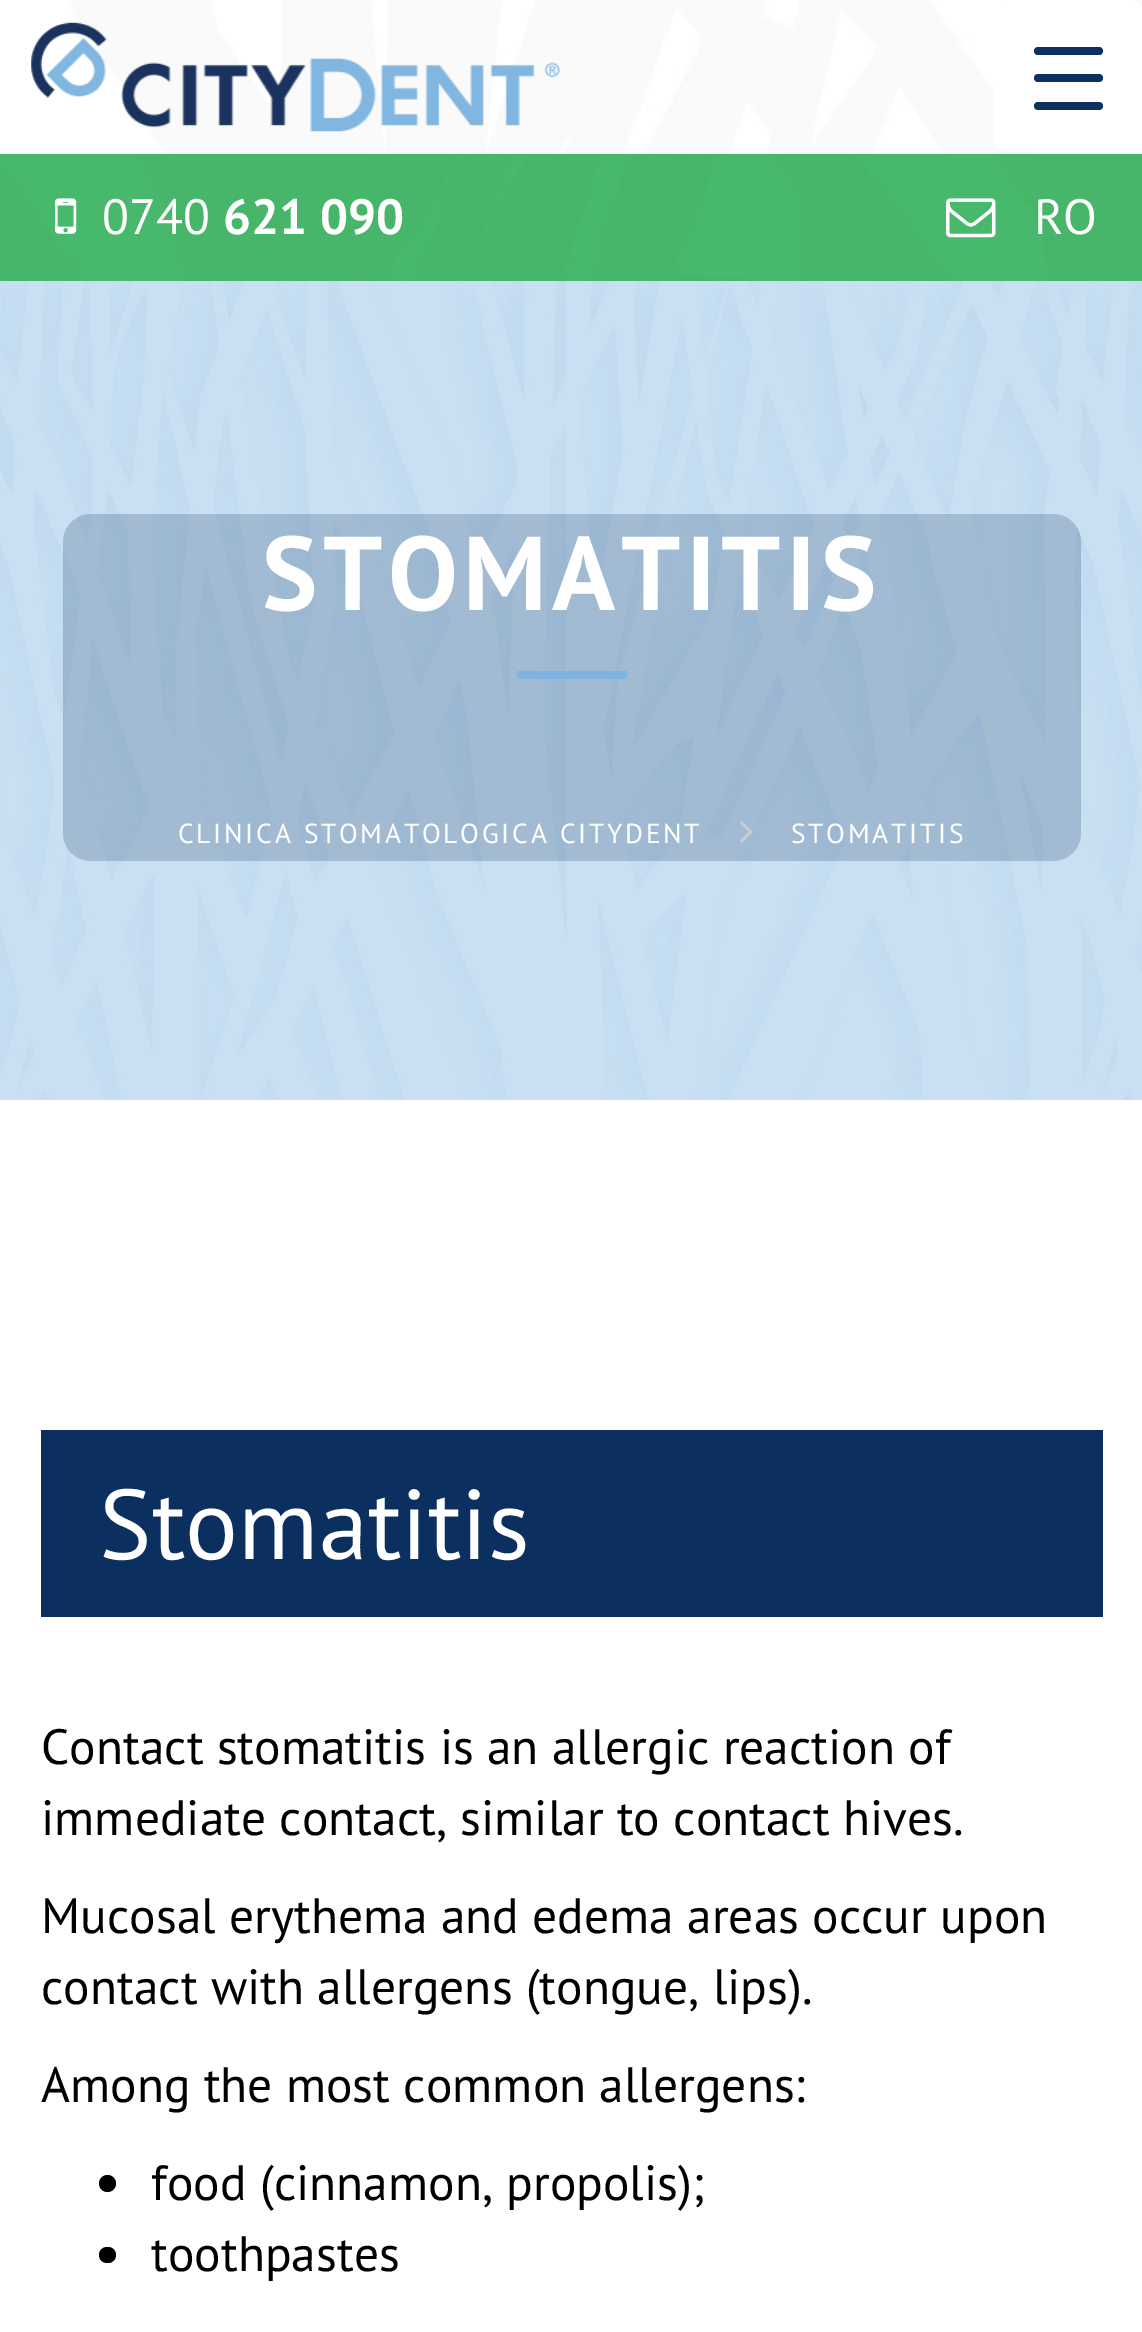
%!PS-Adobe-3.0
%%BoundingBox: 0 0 1142 2332
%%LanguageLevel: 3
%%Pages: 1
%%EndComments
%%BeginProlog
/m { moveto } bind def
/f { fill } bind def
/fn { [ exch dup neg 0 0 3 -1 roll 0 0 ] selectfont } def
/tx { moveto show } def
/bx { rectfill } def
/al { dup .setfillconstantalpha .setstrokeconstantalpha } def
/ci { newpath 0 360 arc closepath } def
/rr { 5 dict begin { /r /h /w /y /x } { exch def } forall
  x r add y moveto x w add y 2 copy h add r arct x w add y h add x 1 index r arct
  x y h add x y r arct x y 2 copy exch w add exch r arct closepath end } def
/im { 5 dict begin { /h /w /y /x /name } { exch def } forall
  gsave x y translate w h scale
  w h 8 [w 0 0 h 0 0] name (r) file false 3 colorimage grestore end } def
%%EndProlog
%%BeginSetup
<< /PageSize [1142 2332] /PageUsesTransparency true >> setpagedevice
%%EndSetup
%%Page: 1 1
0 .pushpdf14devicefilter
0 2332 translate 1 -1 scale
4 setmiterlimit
1 setgray
0 0 1142 2332 bx
(image0.raw) 68 0 1074 154 im
993 0 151 151 14 rr f
0.047 0.192 0.376 setrgbcolor
1034 74 69 8 4 rr f
1034 47 69 8 4 rr f
1034 102 69 8 4 rr f
(image1.raw) 31 22 529 110 im
(image2.raw) 0 154 1142 127 im
(image3.raw) 55 198 22 36 im
/PTSans-Regular 49.5 fn
1 setgray
(0740) 102 234 tx
/PTSans-Bold 49.5 fn
(621 090) 223 234 tx
(image4.raw) 946 198 50 40 im
/PTSans-Regular 49.5 fn
(RO) 1034 234 tx
(image5.raw) 0 281 1142 819 im
0.21 al
0.047 0.192 0.376 setrgbcolor
63 514 1018 347 28 rr f
/PTSans-Bold 104.5 fn
1 al
1 setgray
262 610 m 5.5 0 (STOMATITIS) ashow
0.502 0.706 0.878 setrgbcolor
517 671 110 8 bx
/PTSans-Regular 27.5 fn
1 setgray
178 843 m 2.75 0 (CLINICA STOMATOLOGICA CITYDENT) ashow
(image6.raw) 740 821 13 22 im
791 843 m 2.75 0 (STOMATITIS) ashow
0.043 0.188 0.373 setrgbcolor
41 1430 1062 187 bx
/PTSans-Regular 99 fn
1 setgray
(Stomatitis) 99 1559 tx
/PTSans-Regular 49.5 fn
0 setgray
(Contact stomatitis is an allergic reaction of) 41 1764 tx
(immediate contact, similar to contact hives.) 41 1835 tx
(Mucosal erythema and edema areas occur upon) 41 1933 tx
(contact with allergens \(tongue, lips\).) 41 2004 tx
(Among the most common allergens:) 41 2102 tx
107.5 2183.5 8.5 ci f
(food \(cinnamon, propolis\);) 151 2200 tx
99 2247 17 16 8 rr f
(toothpastes) 151 2271 tx
.poppdf14devicefilter showpage
%%EOF
